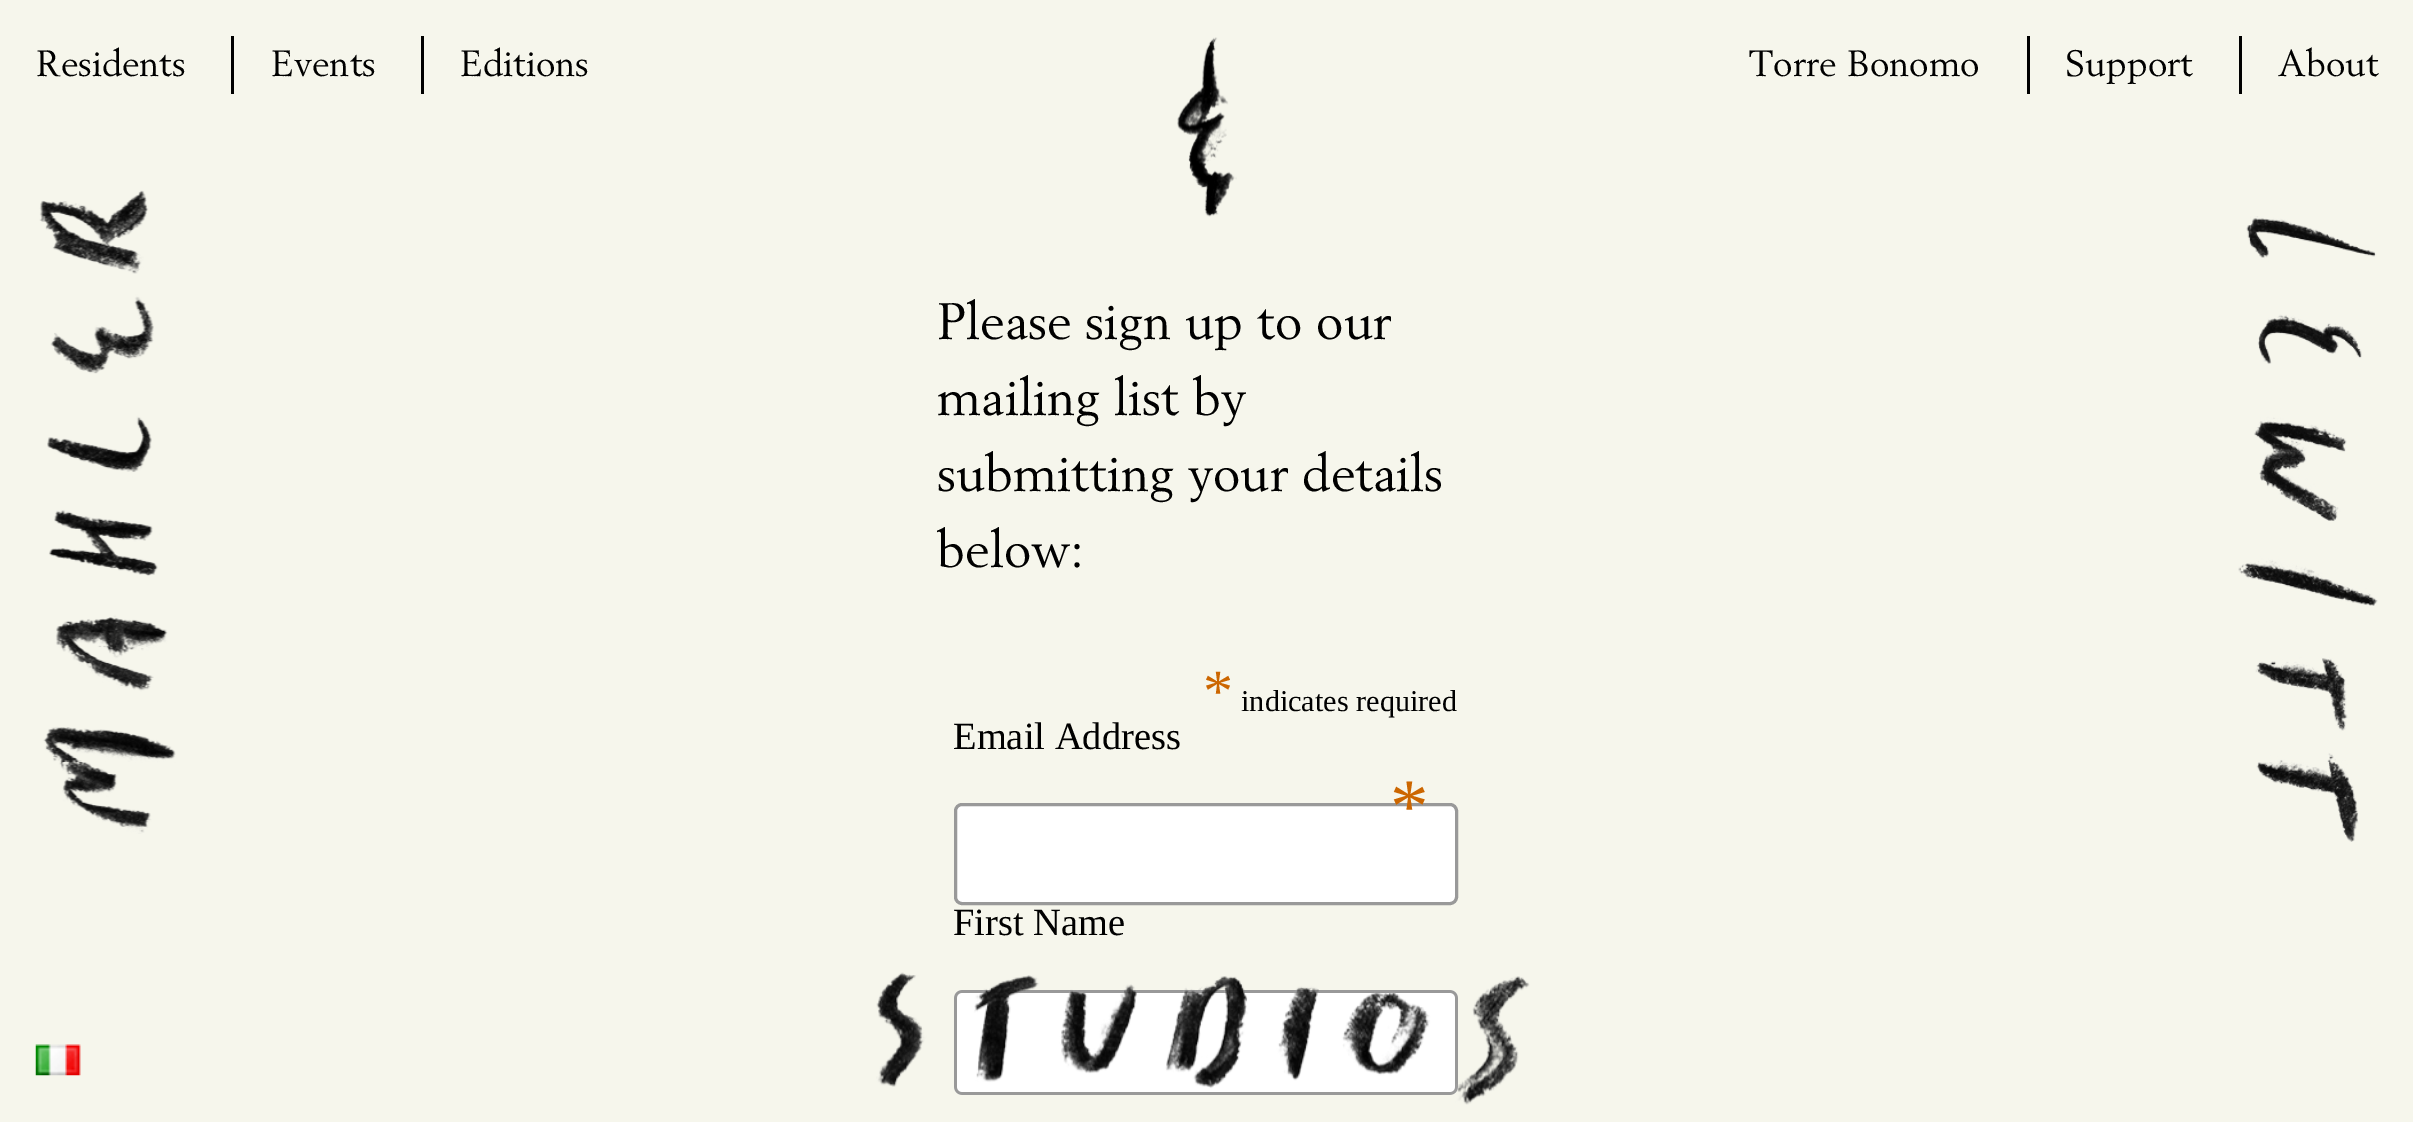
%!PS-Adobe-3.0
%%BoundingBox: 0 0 2413 1122
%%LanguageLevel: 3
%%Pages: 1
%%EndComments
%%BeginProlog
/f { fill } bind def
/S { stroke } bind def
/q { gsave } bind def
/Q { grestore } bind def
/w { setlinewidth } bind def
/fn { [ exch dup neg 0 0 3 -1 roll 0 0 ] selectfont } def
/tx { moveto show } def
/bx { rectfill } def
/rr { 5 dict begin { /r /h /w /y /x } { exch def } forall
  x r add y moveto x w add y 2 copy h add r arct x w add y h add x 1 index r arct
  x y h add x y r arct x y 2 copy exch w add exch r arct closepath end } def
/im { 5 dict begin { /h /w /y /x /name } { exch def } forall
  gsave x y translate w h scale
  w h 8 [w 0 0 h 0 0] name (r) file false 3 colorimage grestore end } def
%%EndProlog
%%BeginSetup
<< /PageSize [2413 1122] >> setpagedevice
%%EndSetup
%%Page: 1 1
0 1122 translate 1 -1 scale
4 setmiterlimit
0.965 0.965 0.925 setrgbcolor
0 0 2413 1122 bx
(image0.raw) 1177 37 60 180 im
/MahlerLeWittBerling-Regular 36.25 fn
0 setgray
(Residents) 36 76 tx
231 36 3 58 bx
(Events) 271 76 tx
421 36 3 58 bx
(Editions) 460 76 tx
(Torre Bonomo) 1749 76 tx
2027 36 3 58 bx
(Support) 2065 76 tx
2239 36 3 58 bx
(About) 2278 76 tx
(image1.raw) 39 190 137 644 im
/MahlerLeWittBerling-Regular 50.75 fn
(Please sign up to our) 937 339 tx
(mailing list by) 937 415 tx
(submitting your details) 937 491 tx
(below:) 937 567 tx
/LiberationSerif-Regular 60 fn
0.8 0.4 0 setrgbcolor
(*) 1203 711 tx
/LiberationSerif-Regular 30.25 fn
0 setgray
(indicates required) 1241 711 tx
/LiberationSerif-Regular 38.5 fn
(Email Address) 953 749 tx
1 setgray
955.5 804.5 501 99 6.5 rr q f Q
0.6 setgray
3 w
S
/LiberationSerif-Regular 77 fn
0.8 0.4 0 setrgbcolor
(*) 1390 832 tx
/LiberationSerif-Regular 38.5 fn
0 setgray
(First Name) 953 935 tx
1 setgray
955.5 991.5 501 102 6.5 rr q f Q
0.6 setgray
S
(image2.raw) 2238 216 140 626 im
(image3.raw) 35 1044 46 32 im
(image4.raw) 876 972 654 133 im
showpage
%%EOF
